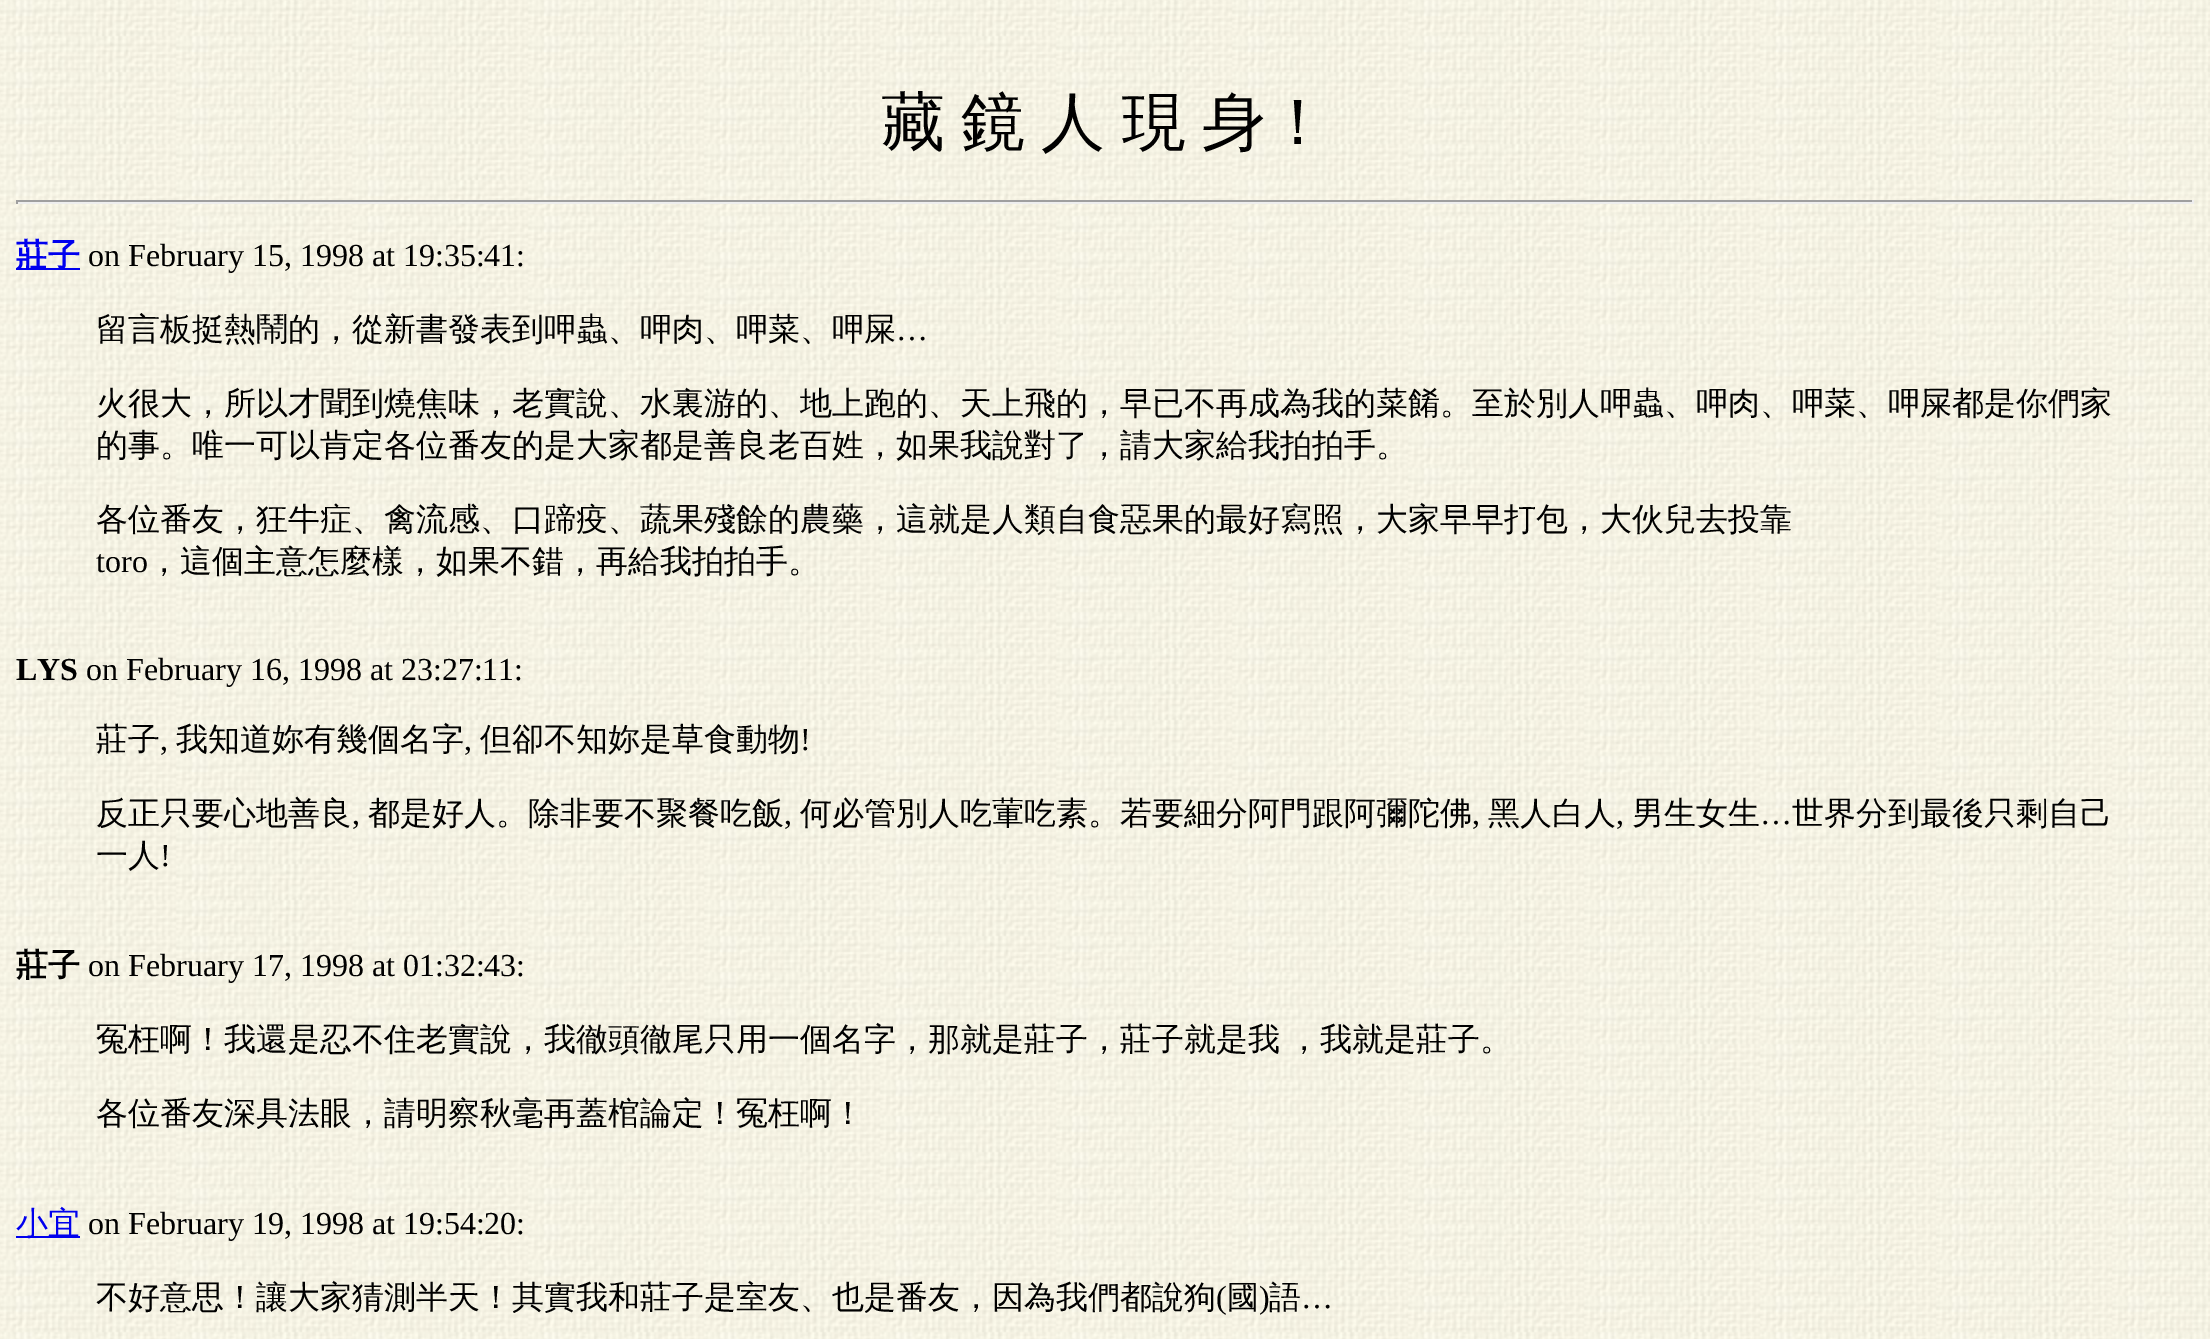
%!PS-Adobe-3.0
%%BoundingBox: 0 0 2210 1339
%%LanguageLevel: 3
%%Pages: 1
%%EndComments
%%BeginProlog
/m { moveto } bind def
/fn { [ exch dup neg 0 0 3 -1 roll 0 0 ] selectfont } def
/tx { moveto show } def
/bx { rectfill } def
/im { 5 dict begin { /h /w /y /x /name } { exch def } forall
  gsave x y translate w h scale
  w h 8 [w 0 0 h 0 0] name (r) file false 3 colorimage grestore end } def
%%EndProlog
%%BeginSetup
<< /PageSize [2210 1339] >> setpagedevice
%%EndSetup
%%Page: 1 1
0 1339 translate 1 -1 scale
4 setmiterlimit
1 setgray
0 0 2210 1339 bx
(image0.raw) 0 0 2210 1339 im
/WenQuanYiZenHei-Medium 64 fn
0 setgray
881 144 m -3 0 32 (藏 鏡 人 現 身！) widthshow
0.624 setgray
16 200 2178 2 bx
0.933 setgray
2192 200 2 4 bx
16 202 2178 2 bx
0.624 setgray
16 200 2 4 bx
0 0 0.933 setrgbcolor
16 268 64 2 bx
/WenQuanYiZenHei-Bold 32 fn
(莊子) 16 266 tx
/LiberationSerif-Regular 32 fn
0 setgray
(on February 15, 1998 at 19:35:41:) 88 266 tx
/WenQuanYiZenHei-Medium 32 fn
(留言板挺熱鬧的，從新書發表到呷蟲、呷肉、呷菜、呷屎) 96 340 tx
/LiberationSerif-Regular 32 fn
(…) 896 340 tx
/WenQuanYiZenHei-Medium 32 fn
(火很大，所以才聞到燒焦味，老實說、水裏游的、地上跑的、天上飛的，早已不再成為我的菜餚。至於別人呷蟲、呷肉、呷菜、呷屎都是你們家) 96 414 tx
(的事。唯一可以肯定各位番友的是大家都是善良老百姓，如果我說對了，請大家給我拍拍手。) 96 456 tx
(各位番友，狂牛症、禽流感、口蹄疫、蔬果殘餘的農藥，這就是人類自食惡果的最好寫照，大家早早打包，大伙兒去投靠) 96 530 tx
/LiberationSerif-Regular 32 fn
(toro) 96 572 tx
/WenQuanYiZenHei-Medium 32 fn
(，這個主意怎麼樣，如果不錯，再給我拍拍手。) 148 572 tx
/LiberationSerif-Bold 32 fn
(LYS) 16 680 tx
/LiberationSerif-Regular 32 fn
(on February 16, 1998 at 23:27:11:) 86 680 tx
/WenQuanYiZenHei-Medium 32 fn
(莊子) 96 750 tx
/LiberationSerif-Regular 32 fn
(,) 160 750 tx
/WenQuanYiZenHei-Medium 32 fn
(我知道妳有幾個名字) 176 750 tx
/LiberationSerif-Regular 32 fn
(,) 464 750 tx
/WenQuanYiZenHei-Medium 32 fn
(但卻不知妳是草食動物) 480 750 tx
/LiberationSerif-Regular 32 fn
(!) 800 750 tx
/WenQuanYiZenHei-Medium 32 fn
(反正只要心地善良) 96 824 tx
/LiberationSerif-Regular 32 fn
(,) 352 824 tx
/WenQuanYiZenHei-Medium 32 fn
(都是好人。除非要不聚餐吃飯) 368 824 tx
/LiberationSerif-Regular 32 fn
(,) 784 824 tx
/WenQuanYiZenHei-Medium 32 fn
(何必管別人吃葷吃素。若要細分阿門跟阿彌陀佛) 800 824 tx
/LiberationSerif-Regular 32 fn
(,) 1472 824 tx
/WenQuanYiZenHei-Medium 32 fn
(黑人白人) 1488 824 tx
/LiberationSerif-Regular 32 fn
(,) 1616 824 tx
/WenQuanYiZenHei-Medium 32 fn
(男生女生) 1632 824 tx
/LiberationSerif-Regular 32 fn
(…) 1760 824 tx
/WenQuanYiZenHei-Medium 32 fn
(世界分到最後只剩自己) 1792 824 tx
(一人) 96 866 tx
/LiberationSerif-Regular 32 fn
(!) 160 866 tx
/WenQuanYiZenHei-Bold 32 fn
(莊子) 16 976 tx
/LiberationSerif-Regular 32 fn
(on February 17, 1998 at 01:32:43:) 88 976 tx
/WenQuanYiZenHei-Medium 32 fn
96 1050 m -2 0 32 (冤枉啊！我還是忍不住老實說，我徹頭徹尾只用一個名字，那就是莊子，莊子就是我 ，我就是莊子。) widthshow
(各位番友深具法眼，請明察秋毫再蓋棺論定！冤枉啊！) 96 1124 tx
0 0 0.933 setrgbcolor
16 1236 64 2 bx
(小宜) 16 1234 tx
/LiberationSerif-Regular 32 fn
0 setgray
(on February 19, 1998 at 19:54:20:) 88 1234 tx
/WenQuanYiZenHei-Medium 32 fn
(不好意思！讓大家猜測半天！其實我和莊子是室友、也是番友，因為我們都說狗) 96 1308 tx
/LiberationSerif-Regular 32 fn
(\() 1216 1308 tx
/WenQuanYiZenHei-Medium 32 fn
(國) 1227 1308 tx
/LiberationSerif-Regular 32 fn
(\)) 1259 1308 tx
/WenQuanYiZenHei-Medium 32 fn
(語) 1269 1308 tx
/LiberationSerif-Regular 32 fn
(…) 1301 1308 tx
showpage
%%EOF
